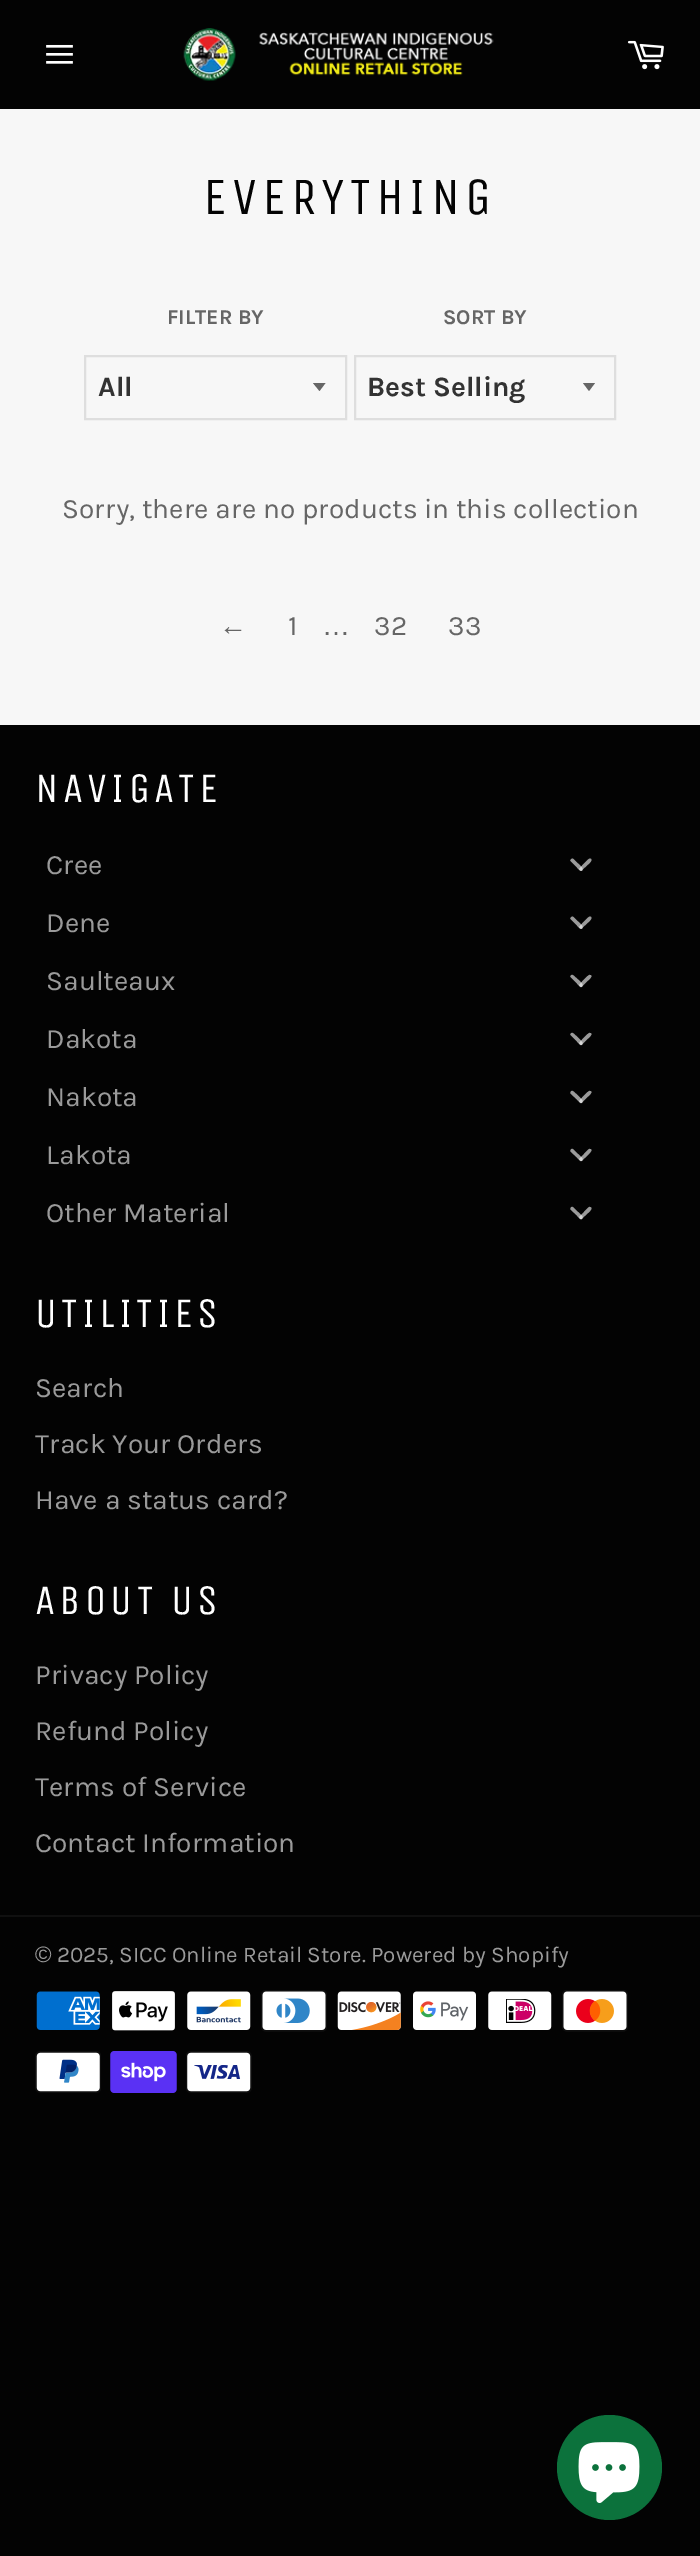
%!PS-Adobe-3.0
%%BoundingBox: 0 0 700 2556
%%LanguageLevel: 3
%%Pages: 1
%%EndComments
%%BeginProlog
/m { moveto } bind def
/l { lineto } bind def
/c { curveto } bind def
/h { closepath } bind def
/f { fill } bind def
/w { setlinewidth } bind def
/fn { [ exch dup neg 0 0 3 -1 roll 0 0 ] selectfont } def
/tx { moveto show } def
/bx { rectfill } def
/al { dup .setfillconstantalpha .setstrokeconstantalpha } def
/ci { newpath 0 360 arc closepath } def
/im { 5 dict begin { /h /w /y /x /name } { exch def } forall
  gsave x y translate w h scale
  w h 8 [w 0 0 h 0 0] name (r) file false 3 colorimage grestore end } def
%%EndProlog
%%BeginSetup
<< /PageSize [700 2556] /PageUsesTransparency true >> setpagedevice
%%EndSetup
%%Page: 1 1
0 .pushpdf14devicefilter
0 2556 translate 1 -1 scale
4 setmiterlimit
0.012 setgray
0 0 700 2556 bx
0.969 setgray
0 109 700 616 bx
(image0.raw) 46 44 27 20 im
(image1.raw) 183 28 311 53 im
(image2.raw) 627 40 37 30 im
/UnicaOne-Regular 52.5 fn
0.012 setgray
203 214 m 5.25 0 (EVERYTHING) ashow
/Karla-Bold 21 fn
0.4 setgray
(FILTER BY) 167 324 tx
313 383 m 319.5 391 l 325.5 383 l h f
0.871 setgray
2 w
85 356 261 63 rectstroke
/Karla-Bold 28 fn
0.2 setgray
(All) 98 396 tx
/Karla-Bold 21 fn
0.4 setgray
(SORT BY) 443 324 tx
583 383 m 589 391 l 595 383 l h f
0.871 setgray
355 356 260 63 rectstroke
/Karla-Bold 28 fn
0.2 setgray
(Best Selling) 367 396 tx
/Karla-Regular 28 fn
0.4 setgray
(Sorry, there are no products in this collection) 62 518 tx
/LiberationSans-Regular 28 fn
(←) 219 635 tx
/Karla-Regular 28 fn
(1) 288 635 tx
/LiberationSans-Regular 28 fn
(…) 322 635 tx
/Karla-Regular 28 fn
(32) 374 635 tx
(33) 448 635 tx
/UnicaOne-Regular 42 fn
1 setgray
35 802 m 4.25 0 (NAVIGATE) ashow
/Karla-Regular 28 fn
0.604 setgray
(Cree) 46 874 tx
573.5 859 m 578 863.5 l 579 864.5 583 867.5 582.5 869.5 c 582 873.5 577.5 868 577 867.5 c 570.5 861 l 570 859.5 572 858 573.5 859 c h f
0.6 al
1 setgray
580 868 m 584 863.5 l 585.5 862.5 588.5 858.5 590 858.5 c 594 859.5 588.5 864 588 864.5 c 581.5 870.5 l 580 871.5 578.5 869 580 868 c h f
1 al
0.604 setgray
(Dene) 46 932 tx
573.5 917 m 578 921.5 l 579 922.5 583 925.5 582.5 927.5 c 582 931.5 577.5 926 577 925.5 c 570.5 919 l 570 917.5 572 916 573.5 917 c h f
0.6 al
1 setgray
580 926 m 584 921.5 l 585.5 920.5 588.5 916.5 590 916.5 c 594 917.5 588.5 922 588 922.5 c 581.5 928.5 l 580 929.5 578.5 927 580 926 c h f
1 al
0.604 setgray
(Saulteaux) 46 990 tx
573.5 975.5 m 578 979.5 l 579 980.5 583 983.5 582.5 985.5 c 582 989.5 577.5 984 577 983.5 c 570.5 977 l 570 975.5 572 974 573.5 975.5 c h f
0.6 al
1 setgray
580 984 m 584 979.5 l 585.5 978.5 588.5 974.5 590 975 c 594 975.5 588.5 980 588 980.5 c 581.5 987 l 580 987.5 578.5 985.5 580 984 c h f
1 al
0.604 setgray
(Dakota) 46 1048 tx
573.5 1033.5 m 578 1037.5 l 579 1039 583 1042 582.5 1043.5 c 582 1047.5 577.5 1042 577 1041.5 c 570.5 1035 l 570 1033.5 572 1032 573.5 1033.5 c h f
0.6 al
1 setgray
580 1042 m 584 1037.5 l 585.5 1036.5 588.5 1032.5 590 1033 c 594 1033.5 588.5 1038 588 1038.5 c 581.5 1045 l 580 1045.5 578.5 1043.5 580 1042 c h f
1 al
0.604 setgray
(Nakota) 46 1106 tx
573.5 1091.5 m 578 1095.5 l 579 1097 583 1100 582.5 1101.5 c 582 1105.5 577.5 1100 577 1099.5 c 570.5 1093.5 l 570 1091.5 572 1090 573.5 1091.5 c h f
0.6 al
1 setgray
580 1100 m 584 1095.5 l 585.5 1094.5 588.5 1090.5 590 1091 c 594 1091.5 588.5 1096 588 1096.5 c 581.5 1103 l 580 1103.5 578.5 1101.5 580 1100 c h f
1 al
0.604 setgray
(Lakota) 46 1164 tx
573.5 1149.5 m 578 1154 l 579 1155 583 1158 582.5 1159.5 c 582 1163.5 577.5 1158 577 1157.5 c 570.5 1151.5 l 570 1149.5 572 1148 573.5 1149.5 c h f
0.6 al
1 setgray
580 1158 m 584 1154 l 585.5 1152.5 588.5 1148.5 590 1149 c 594 1149.5 588.5 1154 588 1155 c 581.5 1161 l 580 1161.5 578.5 1159.5 580 1158 c h f
1 al
0.604 setgray
(Other Material) 46 1222 tx
573.5 1207.5 m 578 1212 l 579 1213 583 1216 582.5 1217.5 c 582 1222 577.5 1216.5 577 1215.5 c 570.5 1209.5 l 570 1207.5 572 1206 573.5 1207.5 c h f
0.6 al
1 setgray
580 1216 m 584 1212 l 585.5 1210.5 588.5 1206.5 590 1207 c 594 1208 588.5 1212.5 588 1213 c 581.5 1219 l 580 1219.5 578.5 1217.5 580 1216 c h f
/UnicaOne-Regular 42 fn
1 al
35 1327 m 4.25 0 (UTILITIES) ashow
/Karla-Regular 28 fn
0.604 setgray
(Search) 35 1397 tx
(Track Your Orders) 35 1453 tx
(Have a status card?) 35 1509 tx
/UnicaOne-Regular 42 fn
1 setgray
35 1614 m 4.25 0 (ABOUT US) ashow
/Karla-Regular 28 fn
0.604 setgray
(Privacy Policy) 35 1684 tx
(Refund Policy) 35 1740 tx
(Terms of Service) 35 1796 tx
(Contact Information) 35 1852 tx
0.063 setgray
0 1915 700 2 bx
/LiberationSans-Regular 22.4 fn
0.604 setgray
(©) 35 1962 tx
/Karla-Regular 22.4 fn
(2025, SICC Online Retail Store. Powered by Shopify) 57 1962 tx
(image3.raw) 36 1991 64 39 im
(image4.raw) 112 1991 63 40 im
(image5.raw) 187 1991 64 39 im
(image6.raw) 261 1990 66 42 im
(image7.raw) 337 1991 64 39 im
(image8.raw) 413 1991 63 39 im
(image9.raw) 488 1991 64 39 im
(image10.raw) 562 1990 66 42 im
(image11.raw) 35 2051 66 42 im
(image12.raw) 110 2051 67 42 im
(image13.raw) 186 2051 66 42 im
0.047 0.447 0.235 setrgbcolor
609.5 2467.5 52.5 ci f
(image14.raw) 578 2442 62 61 im
.poppdf14devicefilter showpage
%%EOF
